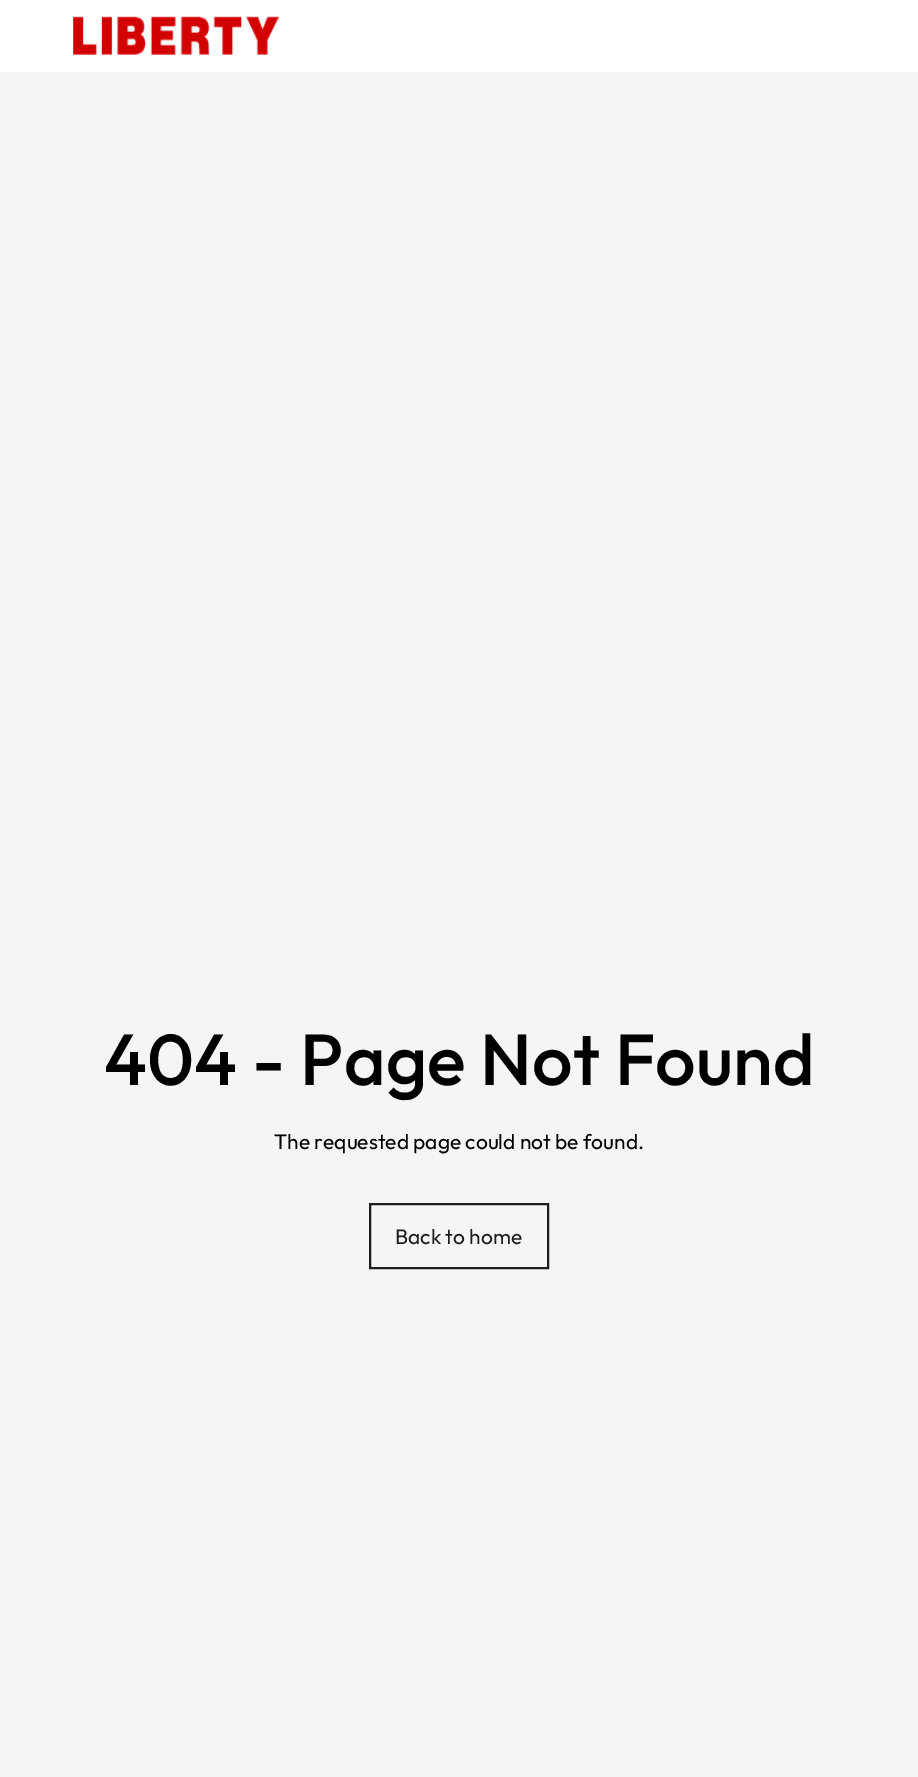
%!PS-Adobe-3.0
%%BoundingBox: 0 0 918 1777
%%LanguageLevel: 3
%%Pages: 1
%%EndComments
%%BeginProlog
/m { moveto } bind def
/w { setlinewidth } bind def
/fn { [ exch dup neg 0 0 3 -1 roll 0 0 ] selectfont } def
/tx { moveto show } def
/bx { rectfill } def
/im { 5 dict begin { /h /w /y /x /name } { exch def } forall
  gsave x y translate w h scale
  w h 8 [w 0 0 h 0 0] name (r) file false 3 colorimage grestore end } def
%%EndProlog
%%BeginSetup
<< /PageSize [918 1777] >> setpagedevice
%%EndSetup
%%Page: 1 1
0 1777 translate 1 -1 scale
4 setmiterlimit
1 setgray
0 0 918 1777 bx
(image0.raw) 72 16 208 39 im
0.961 setgray
0 72 918 1705 bx
/Outfit-Medium 72 fn
0 setgray
104 1085 m 0.5 0 32 (404 - Page Not Found) widthshow
/Outfit-Regular 21 fn
(The requested page could not be found.) 274 1149 tx
0.114 setgray
2 w
370 1204 178 64 rectstroke
(Back to home) 395 1244 tx
showpage
%%EOF
